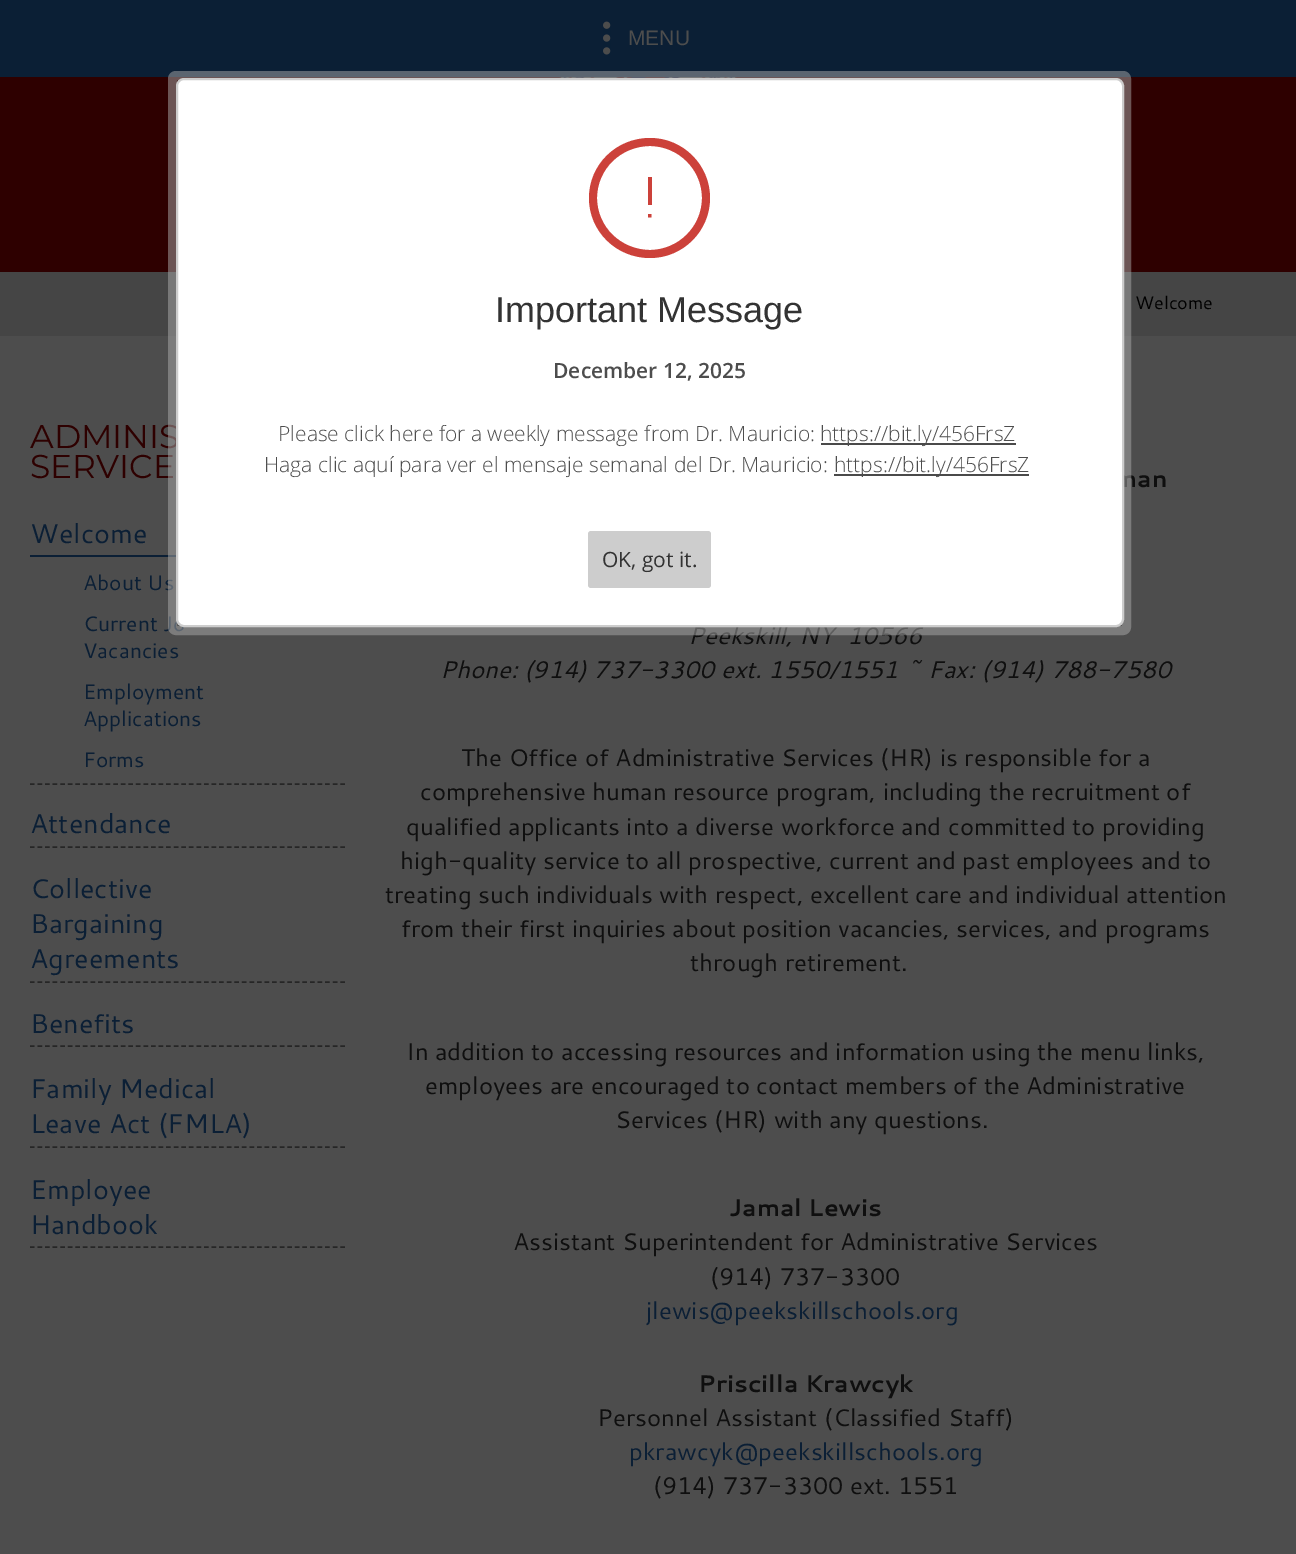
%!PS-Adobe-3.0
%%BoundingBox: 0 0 1296 1554
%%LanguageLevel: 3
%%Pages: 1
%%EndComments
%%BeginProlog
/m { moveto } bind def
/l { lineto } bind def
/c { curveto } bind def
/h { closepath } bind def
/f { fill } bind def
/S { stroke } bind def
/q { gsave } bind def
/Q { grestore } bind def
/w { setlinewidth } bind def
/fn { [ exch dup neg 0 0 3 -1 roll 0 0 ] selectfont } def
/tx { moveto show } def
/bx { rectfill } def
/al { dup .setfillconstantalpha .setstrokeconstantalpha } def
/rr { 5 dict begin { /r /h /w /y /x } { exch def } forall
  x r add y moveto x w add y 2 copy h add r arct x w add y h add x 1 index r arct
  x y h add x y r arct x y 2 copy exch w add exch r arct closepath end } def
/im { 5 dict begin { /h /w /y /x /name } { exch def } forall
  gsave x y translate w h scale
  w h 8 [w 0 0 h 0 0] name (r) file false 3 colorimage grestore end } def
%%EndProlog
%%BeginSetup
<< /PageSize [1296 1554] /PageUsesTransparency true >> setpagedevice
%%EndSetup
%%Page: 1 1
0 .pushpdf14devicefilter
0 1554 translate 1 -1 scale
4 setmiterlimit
0.302 setgray
0 0 1296 1554 bx
0.043 0.122 0.208 setrgbcolor
0 0 1296 77 bx
(image0.raw) 603 21 8 34 im
/LiberationSans-Regular 21 fn
0.302 setgray
(MENU) 628 45 tx
0.18 0 0 setrgbcolor
0 77 1296 195 bx
(image1.raw) 559 77 178 1 im
0.271 setgray
0 272 1296 64 bx
/Cantarell-Regular 18 fn
0 setgray
(Welcome) 1135 309 tx
/Montserrat-Regular 33 fn
0.18 0 0 setrgbcolor
(ADMINIS) 30 448 tx
(SERVICE) 30 478 tx
/Cantarell-Regular 27 fn
0.043 0.122 0.208 setrgbcolor
(Welcome) 30 543 tx
30 555 146 2 bx
/Cantarell-Regular 21 fn
(About Us) 83 590 tx
(Current Jo) 83 631 tx
(Vacancies) 83 658 tx
(Employment) 83 699 tx
(Applications) 83 726 tx
(Forms) 83 767 tx
0.149 setgray
1.5 w
[4.5 3.07] 0 setdash
30 784 m 345 784 l S
30 847 m 345 847 l S
/Cantarell-Regular 27 fn
0.043 0.122 0.208 setrgbcolor
(Attendance) 30 833 tx
0.149 setgray
30 982 m 345 982 l S
0.043 0.122 0.208 setrgbcolor
(Collective) 30 898 tx
(Bargaining) 30 933 tx
(Agreements) 30 968 tx
0.149 setgray
30 1046 m 345 1046 l S
0.043 0.122 0.208 setrgbcolor
(Benefits) 30 1033 tx
0.149 setgray
30 1147 m 345 1147 l S
0.043 0.122 0.208 setrgbcolor
(Family Medical) 30 1098 tx
(Leave Act \(FMLA\)) 30 1133 tx
0.149 setgray
30 1247 m 345 1247 l S
0.043 0.122 0.208 setrgbcolor
(Employee) 30 1199 tx
(Handbook) 30 1234 tx
/Cantarell-Bold 24 fn
0.059 setgray
(man) 1114 487 tx
/Cantarell-Italic 24 fn
(Peekskill, NY  10566) 688 644 tx
(Phone: \(914\) 737-3300 ext. 1550/1551 ~ Fax: \(914\) 788-7580) 440 678 tx
/Cantarell-Regular 24 fn
(The Office of Administrative Services \(HR\) is responsible for a) 461 766 tx
(comprehensive human resource program, including the recruitment of) 420 800 tx
(qualified applicants into a diverse workforce and committed to providing) 406 835 tx
(high-quality service to all prospective, current and past employees and to) 400 869 tx
(treating such individuals with respect, excellent care and individual attention) 385 903 tx
(from their first inquiries about position vacancies, services, and programs) 401 937 tx
(through retirement.) 690 971 tx
(In addition to accessing resources and information using the menu links,) 406 1060 tx
(employees are encouraged to contact members of the Administrative) 425 1094 tx
(Services \(HR\) with any questions.) 615 1128 tx
/Cantarell-Bold 24 fn
(Jamal Lewis) 729 1216 tx
/Cantarell-Regular 24 fn
(Assistant Superintendent for Administrative Services) 513 1250 tx
(\(914\) 737-3300) 710 1285 tx
0.043 0.122 0.208 setrgbcolor
(jlewis@peekskillschools.org) 646 1319 tx
/Cantarell-Bold 24 fn
0.059 setgray
(Priscilla Krawcyk) 698 1392 tx
/Cantarell-Regular 24 fn
(Personnel Assistant \(Classified Staff\)) 597 1426 tx
0.043 0.122 0.208 setrgbcolor
(pkrawcyk@peekskillschools.org) 629 1460 tx
0.059 setgray
(\(914\) 737-3300 ext. 1551) 653 1494 tx
0.5 al
0.667 setgray
9 w
[] 0 setdash
172.5 75.5 954 555 3.5 rr S
1 al
1 setgray
177 79 946 547 7 rr q f Q
0.804 setgray
2 w
S
0.8 0.255 0.227 setrgbcolor
650 258 m 683 258 710 231 710 198 c 710 165 683 138 650 138 c 616 138 589 165 589 198 c 589 231 616 258 650 258 c h 650 250 m 678 250 702 227 702 198 c 702 169 678 146 650 146 c 621 146 597 169 597 198 c 597 227 621 250 650 250 c h eofill
648 177 4 28 bx
648 217.5 m 651.5 217.5 l 651.5 214 l 648 214 l h eofill
/LiberationSans-Regular 36 fn
0.2 setgray
(Important Message) 495 322 tx
/OpenSans-SemiBold 21 fn
0.302 setgray
(December 12, 2025) 553 378 tx
/OpenSans-Light 21 fn
(Please click here for a weekly message from Dr. Mauricio:) 278 441 tx
0.29 setgray
821 443 195 2 bx
0.302 setgray
(https://bit.ly/456FrsZ) 820 441 tx
(Haga clic aquí para ver el mensaje semanal del Dr. Mauricio:) 264 472 tx
0.29 setgray
834 474 195 2 bx
0.302 setgray
(https://bit.ly/456FrsZ) 834 472 tx
0.804 setgray
588 531 123 57 3 rr f
/OpenSans-Regular 21 fn
0.2 setgray
(OK, got it.) 602 567 tx
.poppdf14devicefilter showpage
%%EOF
